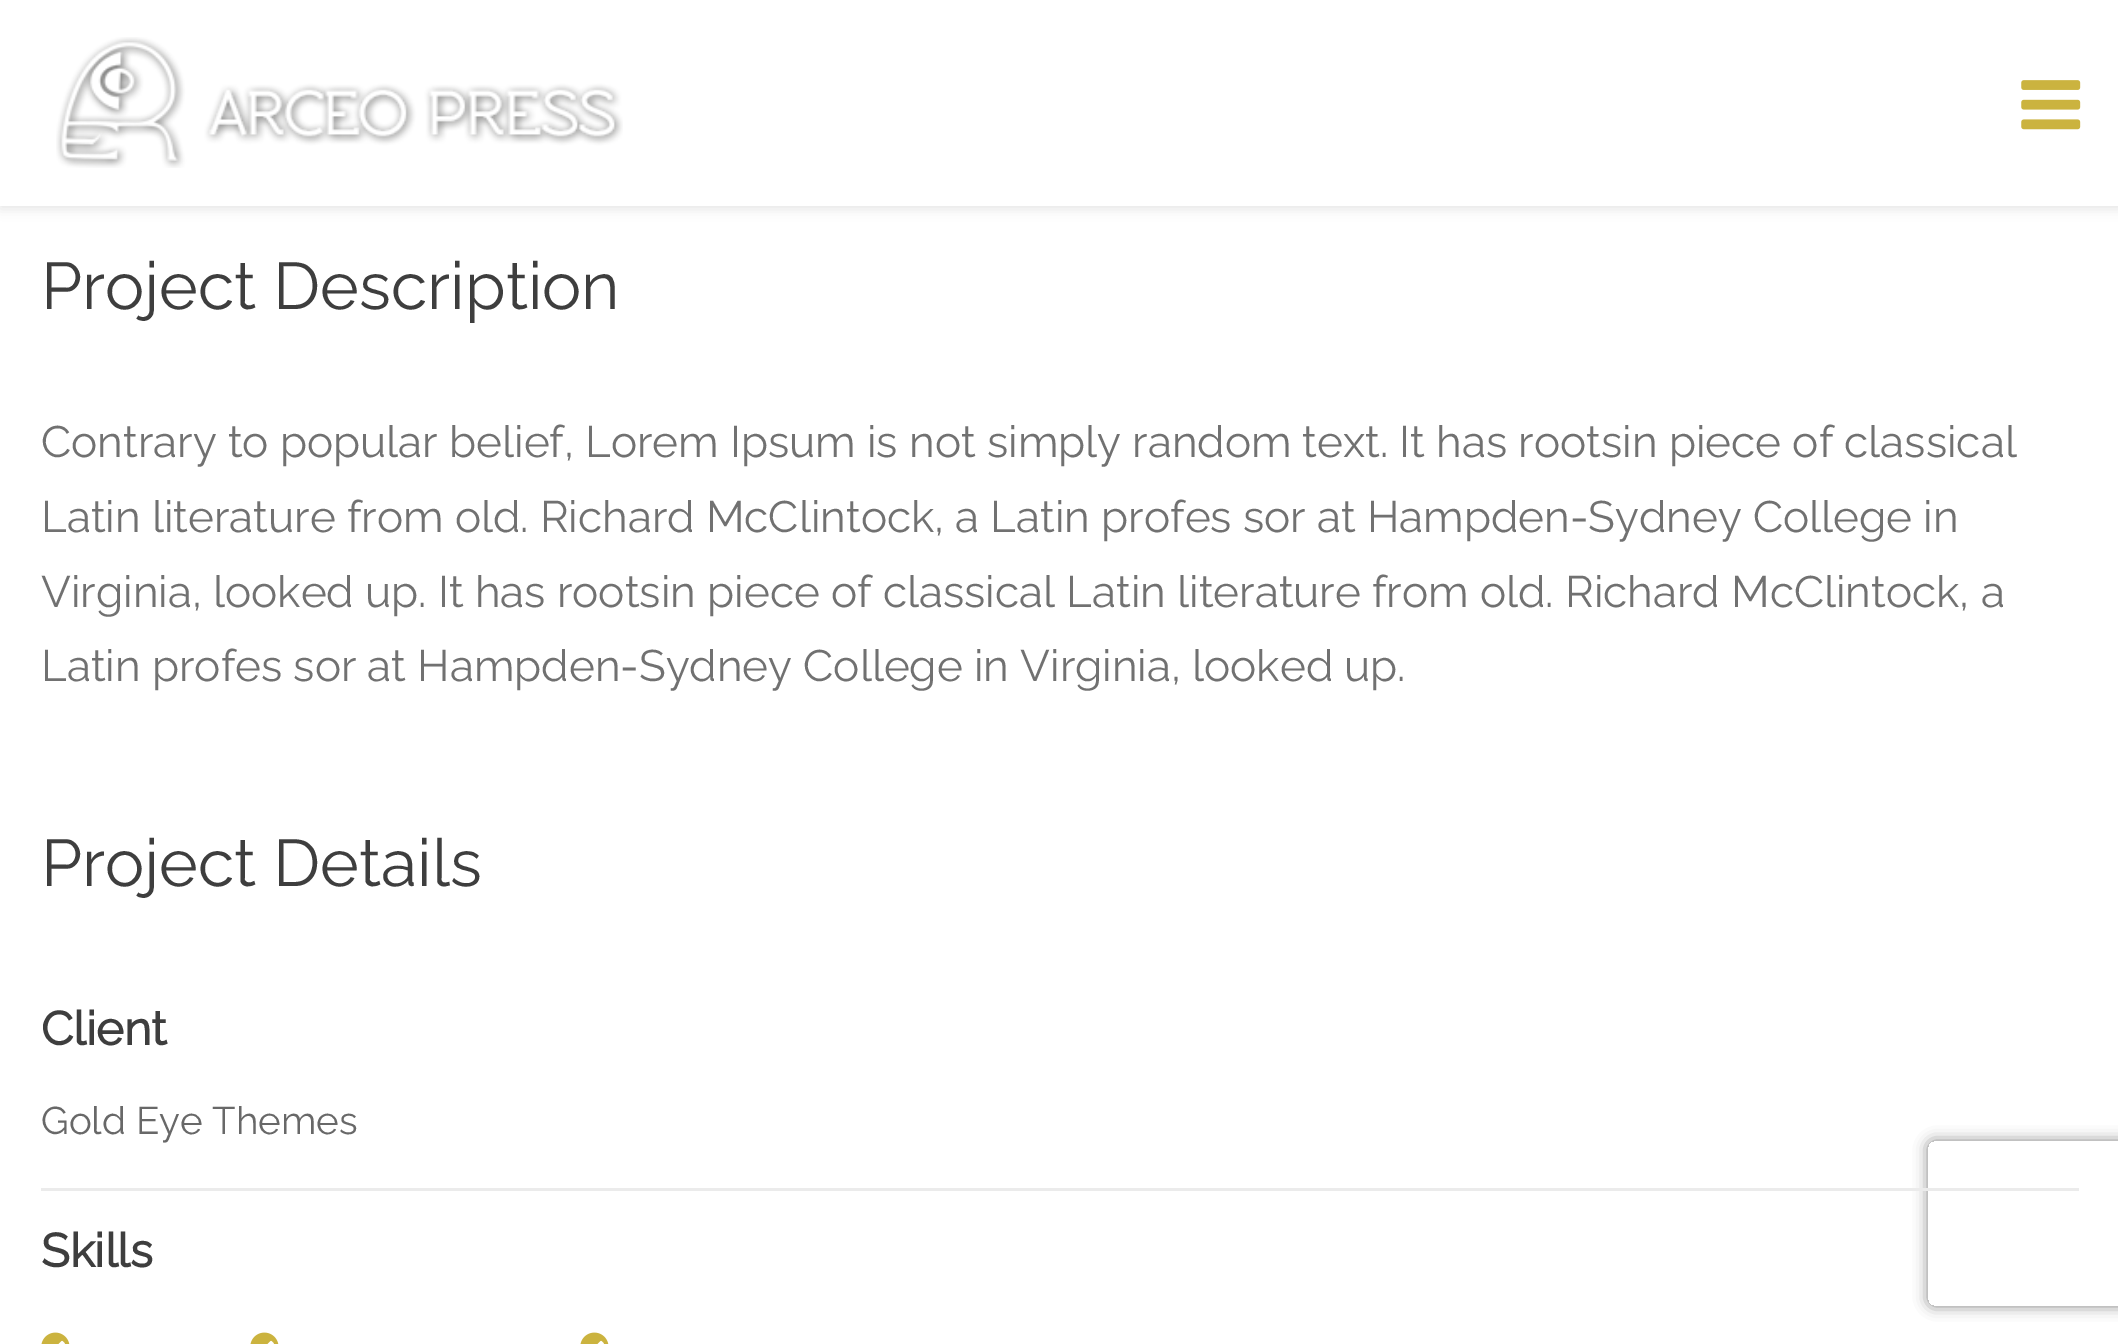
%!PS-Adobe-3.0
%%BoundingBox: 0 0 2118 1344
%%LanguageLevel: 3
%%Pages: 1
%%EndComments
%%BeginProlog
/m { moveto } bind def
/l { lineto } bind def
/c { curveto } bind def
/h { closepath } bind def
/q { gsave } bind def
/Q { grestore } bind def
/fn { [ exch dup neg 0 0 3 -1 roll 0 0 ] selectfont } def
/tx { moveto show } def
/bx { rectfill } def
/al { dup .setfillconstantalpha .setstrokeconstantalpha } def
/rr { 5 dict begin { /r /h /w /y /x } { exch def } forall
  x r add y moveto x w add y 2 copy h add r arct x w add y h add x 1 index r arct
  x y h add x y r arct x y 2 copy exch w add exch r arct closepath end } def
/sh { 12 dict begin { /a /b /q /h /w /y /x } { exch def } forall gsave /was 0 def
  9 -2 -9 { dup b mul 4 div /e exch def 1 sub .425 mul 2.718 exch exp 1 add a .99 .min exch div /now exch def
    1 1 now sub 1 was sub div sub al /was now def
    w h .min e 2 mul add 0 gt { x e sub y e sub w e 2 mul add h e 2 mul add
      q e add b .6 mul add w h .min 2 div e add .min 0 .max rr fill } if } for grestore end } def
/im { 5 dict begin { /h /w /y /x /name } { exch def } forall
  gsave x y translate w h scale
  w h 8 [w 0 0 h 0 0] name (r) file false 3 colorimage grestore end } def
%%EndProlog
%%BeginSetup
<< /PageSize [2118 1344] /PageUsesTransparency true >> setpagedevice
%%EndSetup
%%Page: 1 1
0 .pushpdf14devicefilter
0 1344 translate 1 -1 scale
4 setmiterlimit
1 setgray
0 0 2118 1344 bx
0 setgray
0 3 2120 206 0 5.5 0.1 sh
1 setgray
0 0 2118 206 bx
(image0.raw) 56 37 567 131 im
(image1.raw) 2021 80 60 50 im
/Raleway-Thin 66 fn
0.243 setgray
(Project Description) 41 309 tx
/Raleway-Thin 44 fn
0.443 setgray
(Contrary to popular belief, Lorem Ipsum is not simply random text. It has rootsin piece of classical) 41 457 tx
(Latin literature from old. Richard McClintock, a Latin profes sor at Hampden-Sydney College in) 41 532 tx
(Virginia, looked up. It has rootsin piece of classical Latin literature from old. Richard McClintock, a) 41 607 tx
(Latin profes sor at Hampden-Sydney College in Virginia, looked up.) 41 681 tx
/Raleway-Thin 66 fn
0.243 setgray
(Project Details) 41 886 tx
q
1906 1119 m 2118 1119 l 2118 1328 l 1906 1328 l h 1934 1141 m 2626 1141 l 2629.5 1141 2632 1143.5 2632 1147 c 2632 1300 l 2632 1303.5 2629.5 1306 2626 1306 c 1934 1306 l 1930.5 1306 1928 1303.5 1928 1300 c 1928 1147 l 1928 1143.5 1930.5 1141 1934 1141 c h eoclip newpath
0.502 setgray
1928 1141 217 165 6 7 1 sh
Q
0.922 setgray
41 1188 2038 3 bx
/Raleway-Bold 47 fn
0.243 setgray
(Client) 41 1045 tx
/Raleway-Thin 38.5 fn
0.408 setgray
(Gold Eye Themes) 41 1134 tx
/Raleway-Bold 47 fn
0.243 setgray
(Skills) 41 1267 tx
(image2.raw) 41 1332 29 12 im
(image2.raw) 250 1332 29 12 im
(image2.raw) 580 1332 29 12 im
.poppdf14devicefilter showpage
%%EOF
